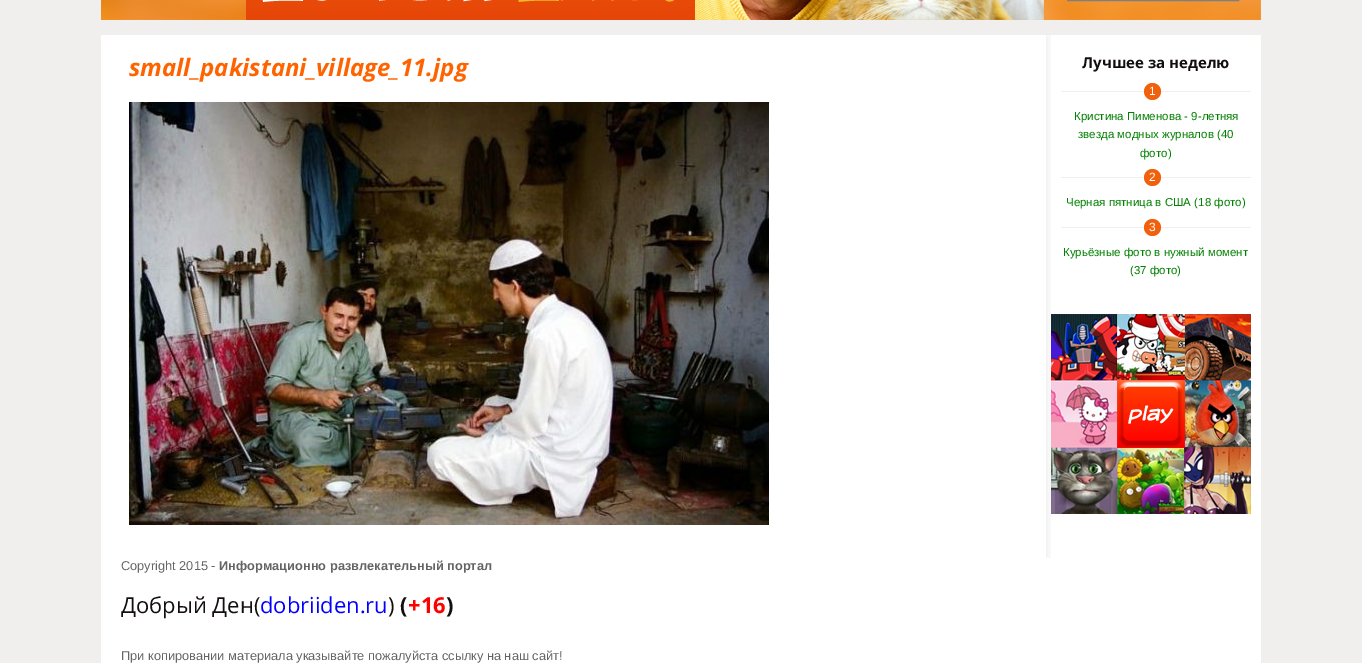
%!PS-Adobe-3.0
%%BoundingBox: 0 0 1362 663
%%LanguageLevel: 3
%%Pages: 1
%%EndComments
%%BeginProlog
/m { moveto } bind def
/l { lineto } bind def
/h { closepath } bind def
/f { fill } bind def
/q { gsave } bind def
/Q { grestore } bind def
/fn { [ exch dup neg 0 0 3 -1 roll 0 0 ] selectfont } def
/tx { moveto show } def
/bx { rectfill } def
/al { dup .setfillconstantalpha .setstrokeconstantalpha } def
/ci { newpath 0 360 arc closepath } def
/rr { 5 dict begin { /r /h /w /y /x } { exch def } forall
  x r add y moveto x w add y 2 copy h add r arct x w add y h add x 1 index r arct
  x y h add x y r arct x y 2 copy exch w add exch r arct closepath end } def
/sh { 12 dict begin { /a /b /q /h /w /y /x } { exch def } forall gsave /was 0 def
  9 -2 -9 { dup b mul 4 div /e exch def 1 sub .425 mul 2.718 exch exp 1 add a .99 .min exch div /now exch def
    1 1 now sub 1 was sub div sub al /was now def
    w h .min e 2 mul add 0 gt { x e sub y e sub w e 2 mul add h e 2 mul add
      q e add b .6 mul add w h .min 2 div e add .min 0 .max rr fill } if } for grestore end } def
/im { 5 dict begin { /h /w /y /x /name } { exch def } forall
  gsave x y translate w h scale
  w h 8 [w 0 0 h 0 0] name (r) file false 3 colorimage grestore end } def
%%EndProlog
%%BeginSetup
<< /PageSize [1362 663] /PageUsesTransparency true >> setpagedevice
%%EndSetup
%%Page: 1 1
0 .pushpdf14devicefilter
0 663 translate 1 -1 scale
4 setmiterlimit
0.945 0.937 0.933 setrgbcolor
0 0 1362 663 bx
1 setgray
101 35 1160 628 bx
(image3.raw) 1051 314 200 200 im
q
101 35 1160 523 rectclip
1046 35 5 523 rectclip
0 setgray
101 35 945 523 0 6 0.1 sh
Q
(image0.raw) 101 0 1160 20 im
q 246 0 m 695 0 l 695 20 l 246 20 l h clip newpath
<< /ShadingType 2 /ColorSpace /DeviceRGB /Coords [471 -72 471 20] /Extend [true true] /Function << /FunctionType 2 /Domain [0 1] /C0 [0.945 0.384 0.051] /C1 [0.902 0.271 0.031] /N 1 >> >> shfill Q
(image1.raw) 262 0 413 2 im
0.498 setgray
1067.5 -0.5 171 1 rectstroke
/OpenSans-BoldItalic 24 fn
1 0.388 0 setrgbcolor
(small_pakistani_village_11.jpg) 129 76 tx
(image2.raw) 129 102 640 423 im
/OpenSans-Bold 15 fn
0.078 0.059 0.059 setrgbcolor
(Лучшее за неделю) 1082 68 tx
0.945 0.937 0.933 setrgbcolor
1061 91 190 1 bx
0.941 0.376 0.051 setrgbcolor
1152.5 91.5 8.5 ci f
/LiberationSans-Regular 12 fn
1 setgray
(1) 1149 95 tx
/LiberationSans-Regular 11.5 fn
0 0.502 0 setrgbcolor
(Кристина Пименова - 9-летняя) 1074 120 tx
(звезда модных журналов \(40) 1078 138 tx
(фото\)) 1140 157 tx
0.945 0.937 0.933 setrgbcolor
1061 177 190 1 bx
0.941 0.376 0.051 setrgbcolor
1152.5 177.5 8.5 ci f
/LiberationSans-Regular 12 fn
1 setgray
(2) 1149 181 tx
/LiberationSans-Regular 11.5 fn
0 0.502 0 setrgbcolor
(Черная пятница в США \(18 фото\)) 1066 206 tx
0.945 0.937 0.933 setrgbcolor
1061 227 190 1 bx
0.941 0.376 0.051 setrgbcolor
1152.5 227.5 8.5 ci f
/LiberationSans-Regular 12 fn
1 setgray
(3) 1149 231 tx
/LiberationSans-Regular 11.5 fn
0 0.502 0 setrgbcolor
(Курьёзные фото в нужный момент) 1063 256 tx
(\(37 фото\)) 1130 274 tx
/LiberationSans-Regular 12.8 fn
0.392 setgray
(Copyright 2015 -) 121 570 tx
/LiberationSans-Bold 12.8 fn
(Информационно развлекательный портал) 219 570 tx
/OpenSans-Regular 22 fn
0.078 0.059 0.059 setrgbcolor
(Добрый Ден\() 121 613 tx
0 0 1 setrgbcolor
(dobriiden.ru) 260 613 tx
0.078 0.059 0.059 setrgbcolor
(\)) 388 613 tx
/OpenSans-Bold 22 fn
(\() 400 613 tx
1 0 0 setrgbcolor
(+16) 408 613 tx
0.078 0.059 0.059 setrgbcolor
(\)) 446 613 tx
/LiberationSans-Regular 12.8 fn
0.392 setgray
(При копировании материала указывайте пожалуйста ссылку на наш сайт!) 121 660 tx
.poppdf14devicefilter showpage
%%EOF
